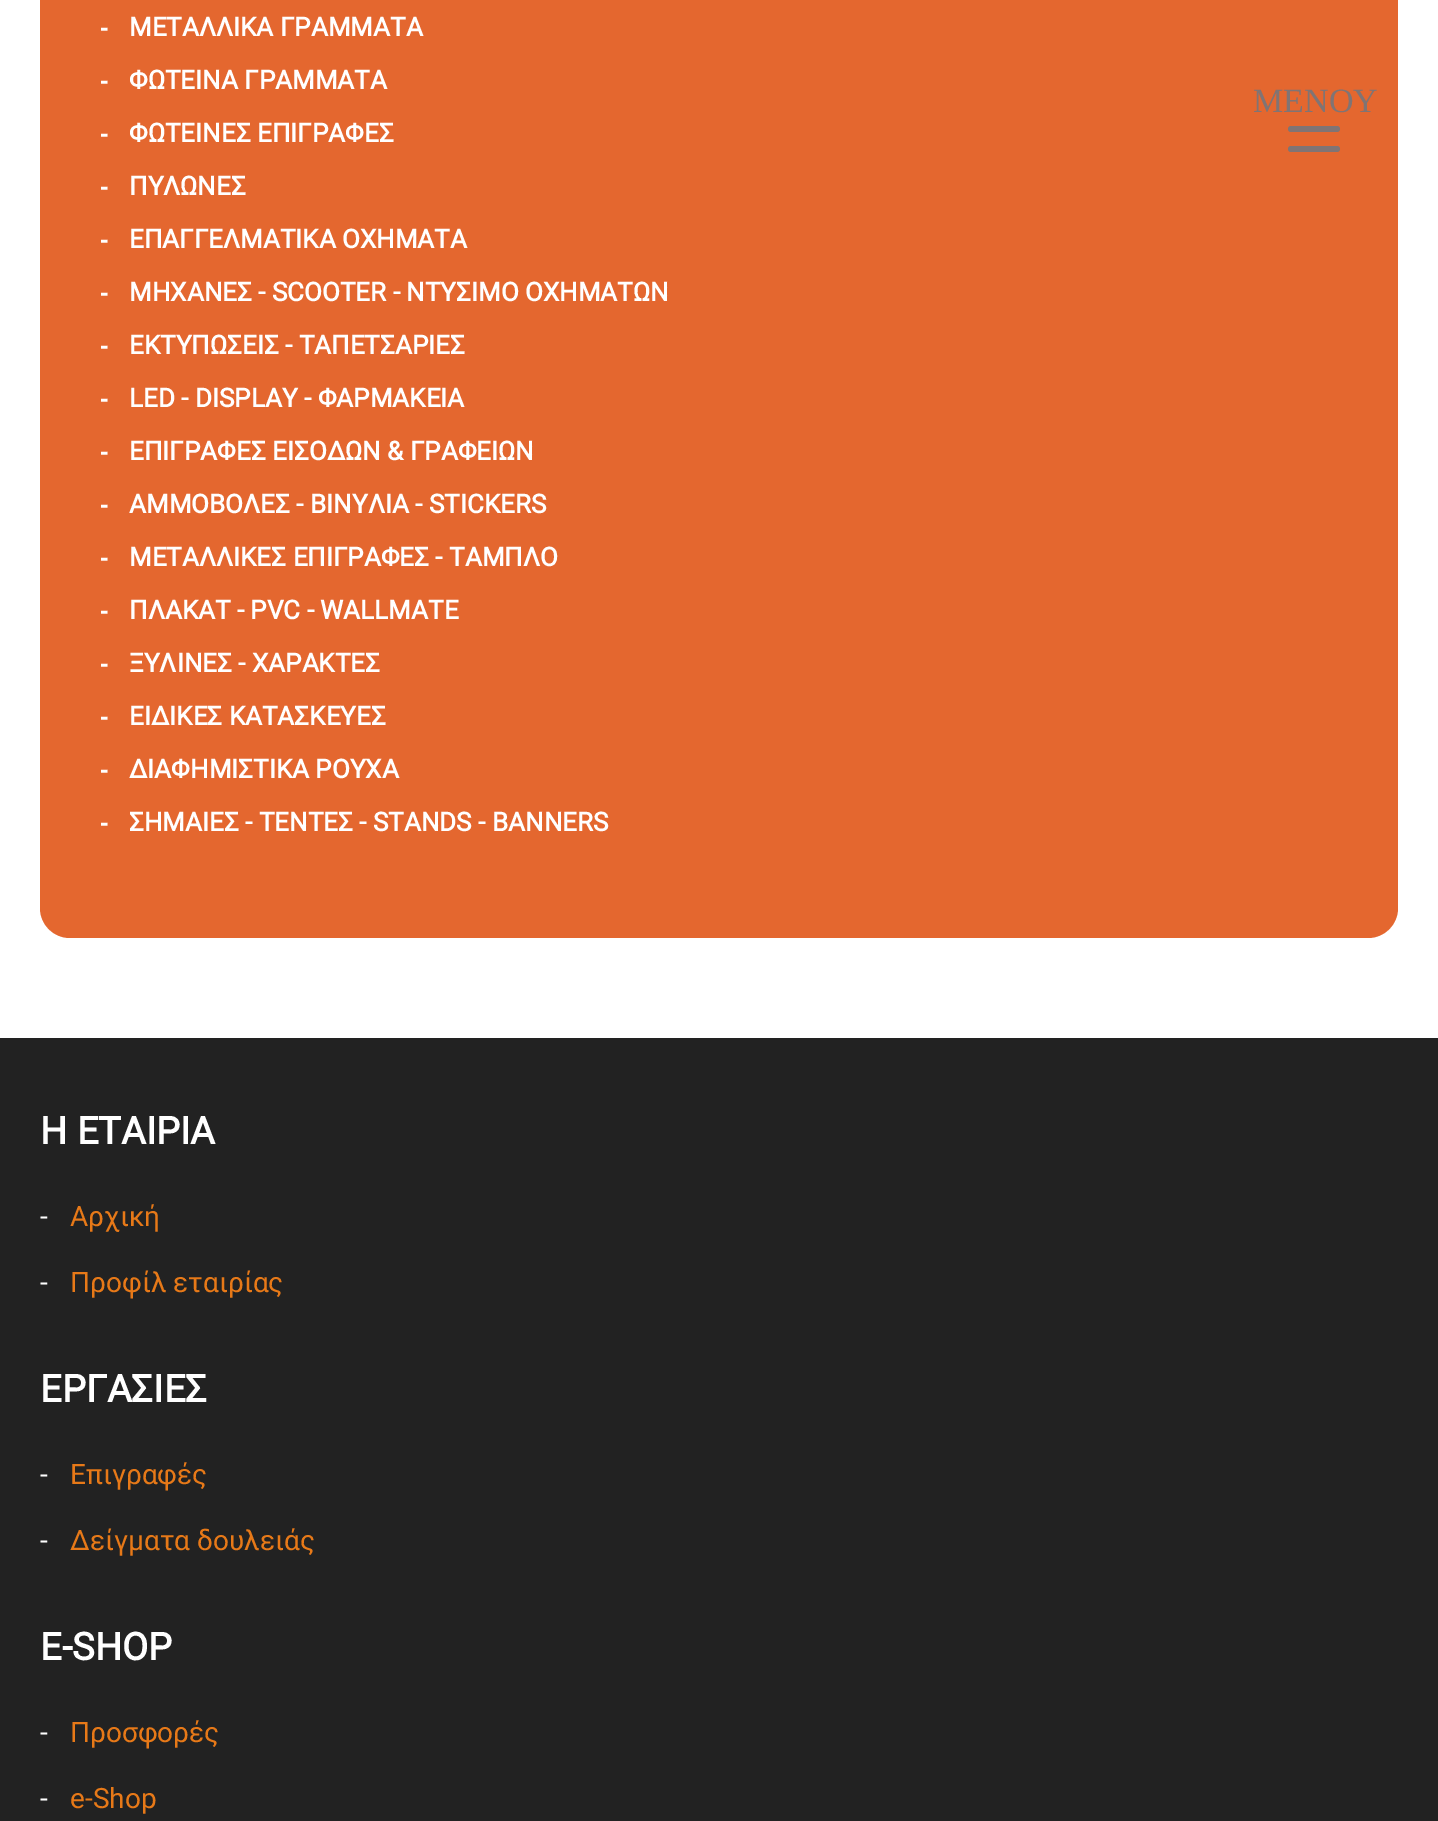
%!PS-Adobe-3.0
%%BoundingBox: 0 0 1438 1821
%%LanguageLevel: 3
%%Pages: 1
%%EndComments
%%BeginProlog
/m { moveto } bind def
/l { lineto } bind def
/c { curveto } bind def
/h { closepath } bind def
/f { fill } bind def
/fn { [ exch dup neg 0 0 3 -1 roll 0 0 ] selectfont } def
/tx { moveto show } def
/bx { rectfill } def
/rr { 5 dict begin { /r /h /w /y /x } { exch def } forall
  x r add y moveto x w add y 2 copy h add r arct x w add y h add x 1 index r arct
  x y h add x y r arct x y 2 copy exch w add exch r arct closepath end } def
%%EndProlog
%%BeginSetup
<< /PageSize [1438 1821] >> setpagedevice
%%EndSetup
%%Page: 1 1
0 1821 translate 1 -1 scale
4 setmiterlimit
1 setgray
0 0 1438 1821 bx
0.894 0.404 0.184 setrgbcolor
40 -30 m 1398 -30 l 1398 908 l 1398 924.5 1384.5 938 1368 938 c 70 938 l 53.5 938 40 924.5 40 908 c h f
/LiberationSans-Bold 26 fn
1 setgray
(-) 100 36 tx
/Roboto-Bold 26 fn
(ΜΕΤΑΛΛΙΚΑ ΓΡΑΜΜΑΤΑ) 129 36 tx
/LiberationSans-Bold 26 fn
(-) 100 89 tx
/Roboto-Bold 26 fn
(ΦΩΤΕΙΝΑ ΓΡΑΜΜΑΤΑ) 129 89 tx
/LiberationSans-Bold 26 fn
(-) 100 142 tx
/Roboto-Bold 26 fn
(ΦΩΤΕΙΝΕΣ ΕΠΙΓΡΑΦΕΣ) 129 142 tx
/LiberationSans-Bold 26 fn
(-) 100 195 tx
/Roboto-Bold 26 fn
(ΠΥΛΩΝΕΣ) 129 195 tx
/LiberationSans-Bold 26 fn
(-) 100 248 tx
/Roboto-Bold 26 fn
(ΕΠΑΓΓΕΛΜΑΤΙΚΑ ΟΧΗΜΑΤΑ) 129 248 tx
/LiberationSans-Bold 26 fn
(-) 100 301 tx
/Roboto-Bold 26 fn
(ΜΗΧΑΝΕΣ - SCOOTER - ΝΤΥΣΙΜΟ ΟΧΗΜΑΤΩΝ) 129 301 tx
/LiberationSans-Bold 26 fn
(-) 100 354 tx
/Roboto-Bold 26 fn
(ΕΚΤΥΠΩΣΕΙΣ - ΤΑΠΕΤΣΑΡΙΕΣ) 129 354 tx
/LiberationSans-Bold 26 fn
(-) 100 407 tx
/Roboto-Bold 26 fn
(LED - DISPLAY - ΦΑΡΜΑΚΕΙΑ) 129 407 tx
/LiberationSans-Bold 26 fn
(-) 100 460 tx
/Roboto-Bold 26 fn
(ΕΠΙΓΡΑΦΕΣ ΕΙΣΟΔΩΝ & ΓΡΑΦΕΙΩΝ) 129 460 tx
/LiberationSans-Bold 26 fn
(-) 100 513 tx
/Roboto-Bold 26 fn
(ΑΜΜΟΒΟΛΕΣ - ΒΙΝΥΛΙΑ - STICKERS) 129 513 tx
/LiberationSans-Bold 26 fn
(-) 100 566 tx
/Roboto-Bold 26 fn
(ΜΕΤΑΛΛΙΚΕΣ ΕΠΙΓΡΑΦΕΣ - ΤΑΜΠΛΟ) 129 566 tx
/LiberationSans-Bold 26 fn
(-) 100 619 tx
/Roboto-Bold 26 fn
(ΠΛΑΚΑΤ - PVC - WALLMATE) 129 619 tx
/LiberationSans-Bold 26 fn
(-) 100 672 tx
/Roboto-Bold 26 fn
(ΞΥΛΙΝΕΣ - ΧΑΡΑΚΤΕΣ) 129 672 tx
/LiberationSans-Bold 26 fn
(-) 100 725 tx
/Roboto-Bold 26 fn
(ΕΙΔΙΚΕΣ ΚΑΤΑΣΚΕΥΕΣ) 129 725 tx
/LiberationSans-Bold 26 fn
(-) 100 778 tx
/Roboto-Bold 26 fn
(ΔΙΑΦΗΜΙΣΤΙΚΑ ΡΟΥΧΑ) 129 778 tx
/LiberationSans-Bold 26 fn
(-) 100 831 tx
/Roboto-Bold 26 fn
(ΣΗΜΑΙΕΣ - ΤΕΝΤΕΣ - STANDS - BANNERS) 129 831 tx
0.133 setgray
0 1038 1438 783 bx
/Roboto-Bold 38 fn
1 setgray
(Η ΕΤΑΙΡΙΑ) 40 1144 tx
/Roboto-Regular 28 fn
(-) 40 1226 tx
0.906 0.475 0.094 setrgbcolor
(Αρχική) 70 1226 tx
1 setgray
(-) 40 1292 tx
0.906 0.475 0.094 setrgbcolor
(Προφίλ εταιρίας) 70 1292 tx
/Roboto-Bold 38 fn
1 setgray
(ΕΡΓΑΣΙΕΣ) 40 1402 tx
/Roboto-Regular 28 fn
(-) 40 1484 tx
0.906 0.475 0.094 setrgbcolor
(Επιγραφές) 70 1484 tx
1 setgray
(-) 40 1550 tx
0.906 0.475 0.094 setrgbcolor
(Δείγματα δουλειάς) 70 1550 tx
/Roboto-Bold 38 fn
1 setgray
(E-SHOP) 40 1660 tx
/Roboto-Regular 28 fn
(-) 40 1742 tx
0.906 0.475 0.094 setrgbcolor
(Προσφορές) 70 1742 tx
1 setgray
(-) 40 1808 tx
0.906 0.475 0.094 setrgbcolor
(e-Shop) 70 1808 tx
/LiberationSerif-Regular 34 fn
0.502 0.455 0.455 setrgbcolor
(ΜΕΝΟΥ) 1253 112 tx
1288 146 52 6 3 rr f
1288 126 52 6 3 rr f
showpage
%%EOF
